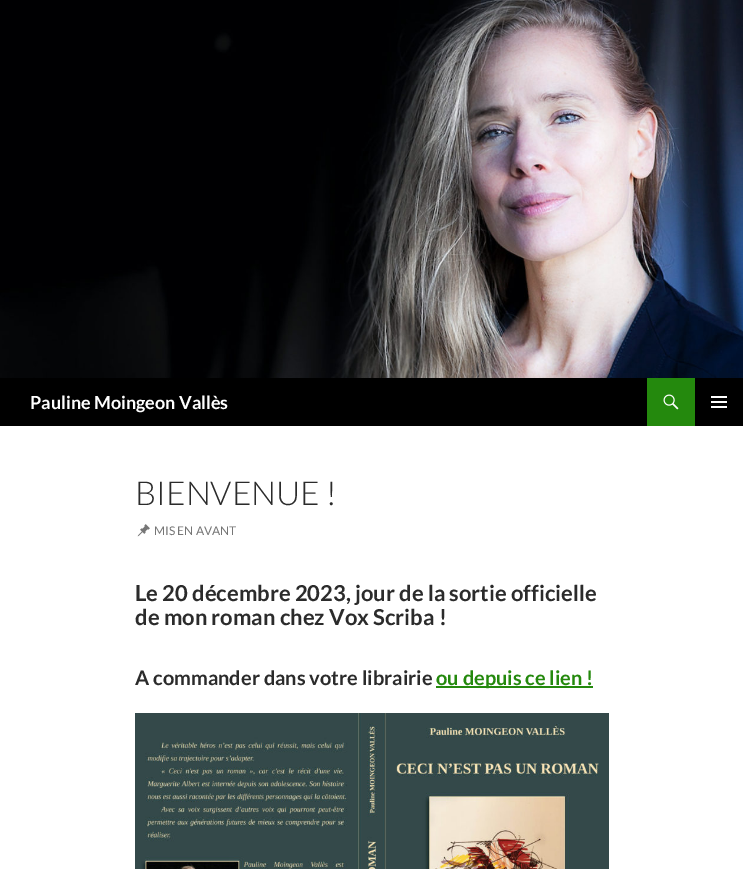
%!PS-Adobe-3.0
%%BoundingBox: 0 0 743 869
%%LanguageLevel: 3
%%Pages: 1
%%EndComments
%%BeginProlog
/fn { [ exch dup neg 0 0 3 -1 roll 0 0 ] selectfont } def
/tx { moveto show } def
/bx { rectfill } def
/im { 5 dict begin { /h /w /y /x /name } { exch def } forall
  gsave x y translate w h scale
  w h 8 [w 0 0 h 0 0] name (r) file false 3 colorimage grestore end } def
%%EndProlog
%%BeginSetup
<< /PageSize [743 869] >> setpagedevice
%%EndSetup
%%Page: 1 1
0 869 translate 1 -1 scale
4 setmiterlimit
1 setgray
0 0 743 869 bx
(image0.raw) 0 0 743 378 im
0 setgray
0 378 743 48 bx
/Lato-Bold 18 fn
1 setgray
(Pauline Moingeon Vallès) 30 409 tx
0.141 0.537 0.051 setrgbcolor
647 378 48 48 bx
(image1.raw) 663 394 16 16 im
(image2.raw) 711 396 16 12 im
/Lato-Light 33 fn
0.169 setgray
(BIENVENUE !) 135 505 tx
(image3.raw) 137 524 13 13 im
/Lato-Regular 12 fn
0.463 setgray
(MIS EN AVANT) 154 535 tx
/Lato-Bold 22 fn
0.169 setgray
(Le 20 décembre 2023, jour de la sortie officielle) 135 601 tx
(de mon roman chez Vox Scriba !) 135 625 tx
/Lato-Bold 20 fn
(A commander dans votre librairie) 135 685 tx
0.141 0.537 0.051 setrgbcolor
436 686 157 2 bx
(ou depuis ce lien !) 436 685 tx
(image4.raw) 135 713 474 156 im
showpage
%%EOF
